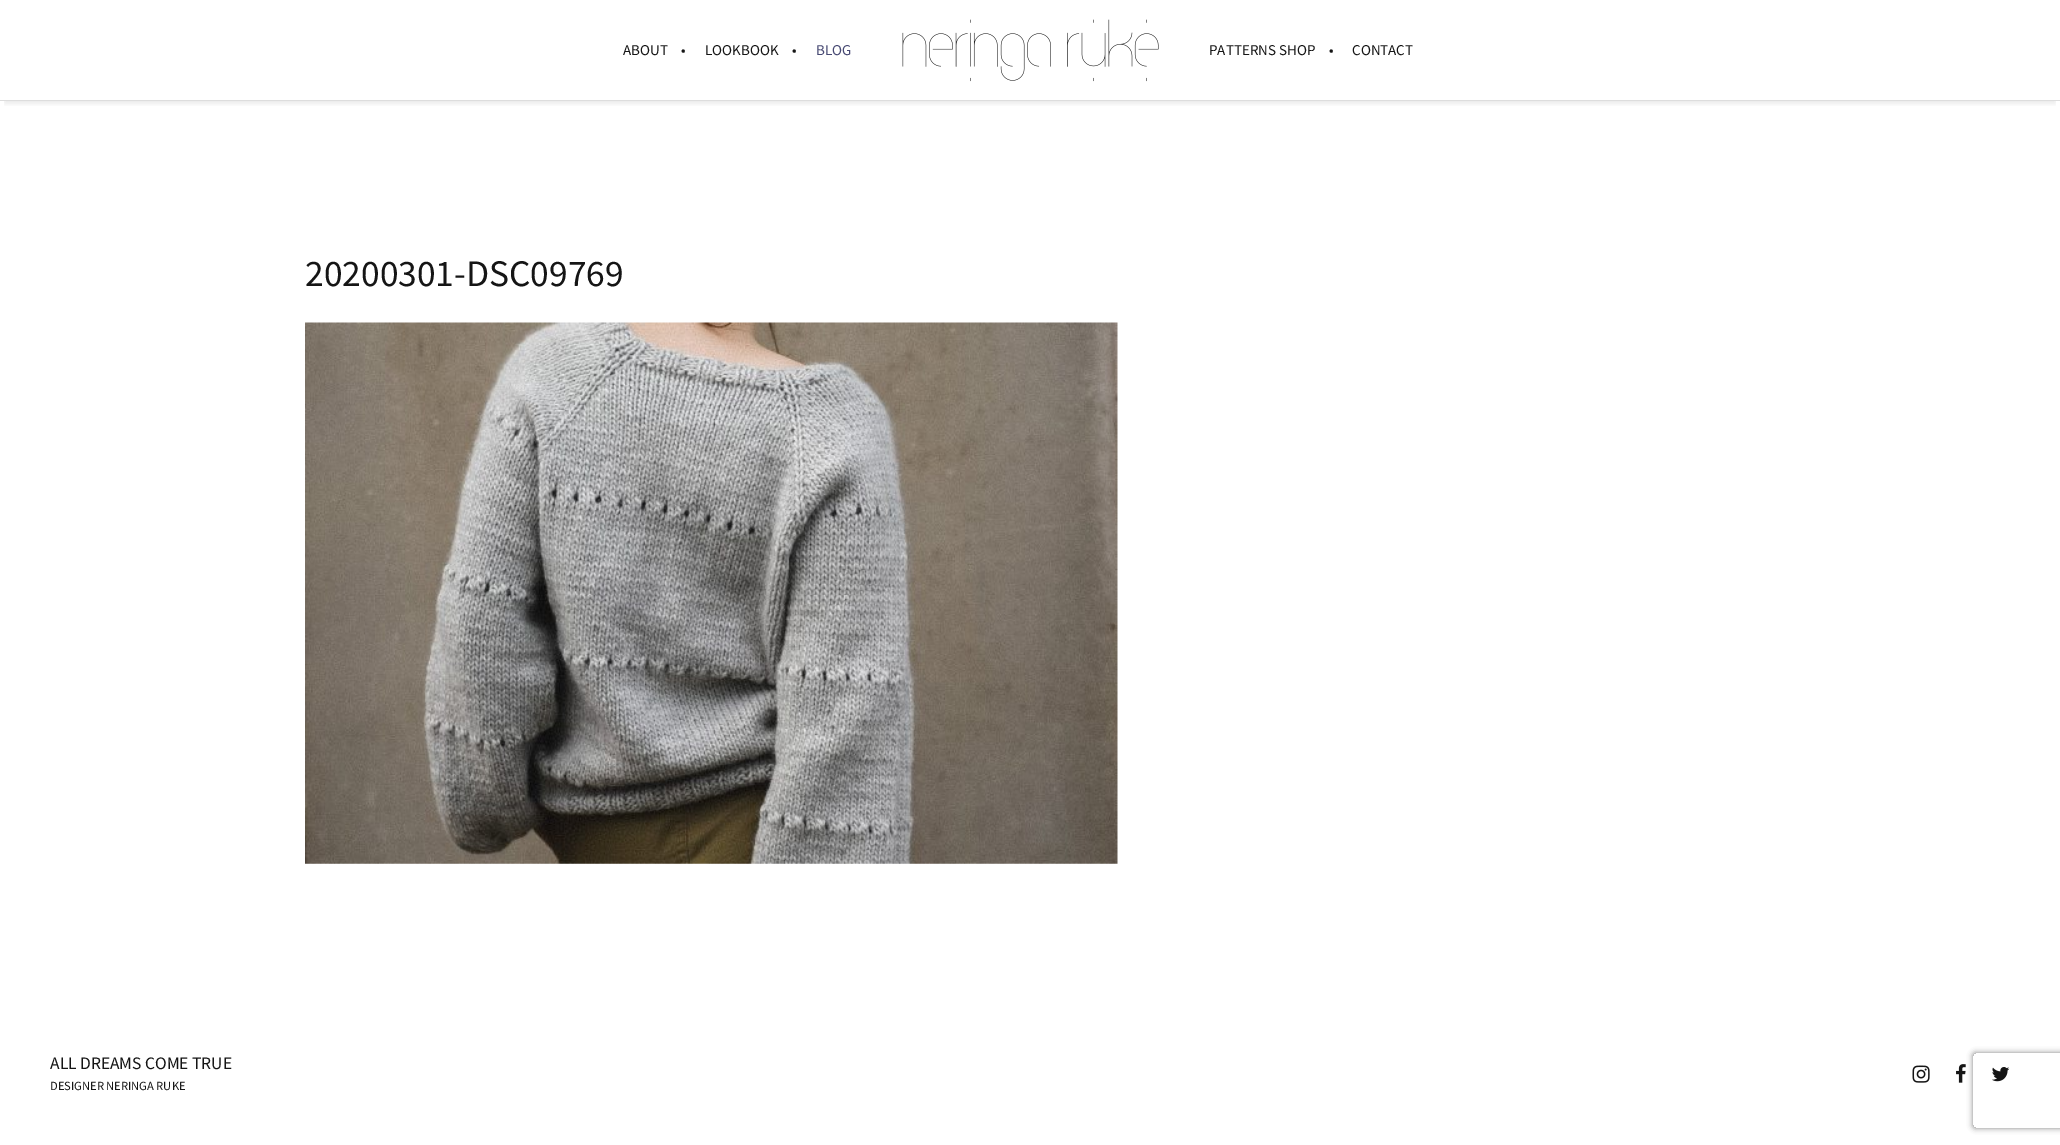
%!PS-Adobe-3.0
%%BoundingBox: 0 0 2060 1145
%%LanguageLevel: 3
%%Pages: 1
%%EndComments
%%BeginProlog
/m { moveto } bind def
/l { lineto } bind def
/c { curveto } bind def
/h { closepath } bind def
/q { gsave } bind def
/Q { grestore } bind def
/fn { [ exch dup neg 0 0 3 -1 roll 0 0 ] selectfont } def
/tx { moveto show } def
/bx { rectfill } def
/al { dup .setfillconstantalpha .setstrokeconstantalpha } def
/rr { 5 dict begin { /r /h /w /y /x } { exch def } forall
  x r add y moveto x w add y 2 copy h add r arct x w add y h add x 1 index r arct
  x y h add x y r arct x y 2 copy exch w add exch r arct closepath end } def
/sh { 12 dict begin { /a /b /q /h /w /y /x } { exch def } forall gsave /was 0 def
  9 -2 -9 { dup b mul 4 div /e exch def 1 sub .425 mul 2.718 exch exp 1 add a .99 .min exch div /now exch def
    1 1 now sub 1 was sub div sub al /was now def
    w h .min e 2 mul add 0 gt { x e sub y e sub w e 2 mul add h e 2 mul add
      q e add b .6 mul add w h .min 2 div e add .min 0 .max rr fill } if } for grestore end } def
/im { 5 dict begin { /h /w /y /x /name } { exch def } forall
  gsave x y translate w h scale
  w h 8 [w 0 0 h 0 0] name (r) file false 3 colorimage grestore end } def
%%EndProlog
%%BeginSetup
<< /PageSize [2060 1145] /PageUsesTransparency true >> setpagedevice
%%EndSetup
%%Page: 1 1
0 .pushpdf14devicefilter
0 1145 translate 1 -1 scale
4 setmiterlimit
1 setgray
0 0 2060 1145 bx
q
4 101 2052 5 rectclip
0 setgray
5 11 2050 92 0 3 0.1 sh
Q
0.867 setgray
0 100 2060 1 bx
/SourceSansPro-Regular 15 fn
0.082 setgray
(ABOUT) 623 55 tx
(•) 681 55 tx
(LOOKBOOK) 705 55 tx
(•) 792 55 tx
0.278 0.286 0.451 setrgbcolor
(BLOG) 816 55 tx
(image0.raw) 902 19 257 63 im
0.082 setgray
(PATTERNS SHOP) 1209 55 tx
(•) 1329 55 tx
(CONTACT) 1352 55 tx
/SourceSansPro-Regular 37.5 fn
(20200301-DSC09769) 305 286 tx
(image1.raw) 305 322 813 542 im
/SourceSansPro-Regular 17.5 fn
(ALL DREAMS COME TRUE) 50 1069 tx
/SourceSansPro-Regular 12.5 fn
(DESIGNER NERINGA RUKE) 50 1090 tx
(image2.raw) 1912 1065 18 18 im
(image3.raw) 1956 1064 10 19 im
(image4.raw) 1992 1067 18 15 im
q
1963 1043 m 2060 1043 l 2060 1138 l 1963 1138 l h 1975.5 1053 m 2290.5 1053 l 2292 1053 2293 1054 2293 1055.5 c 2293 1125.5 l 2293 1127 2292 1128 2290.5 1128 c 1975.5 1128 l 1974 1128 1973 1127 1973 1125.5 c 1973 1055.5 l 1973 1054 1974 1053 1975.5 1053 c h eoclip newpath
0.502 setgray
1973 1053 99 75 2.5 3 1 sh
Q
.poppdf14devicefilter showpage
%%EOF
